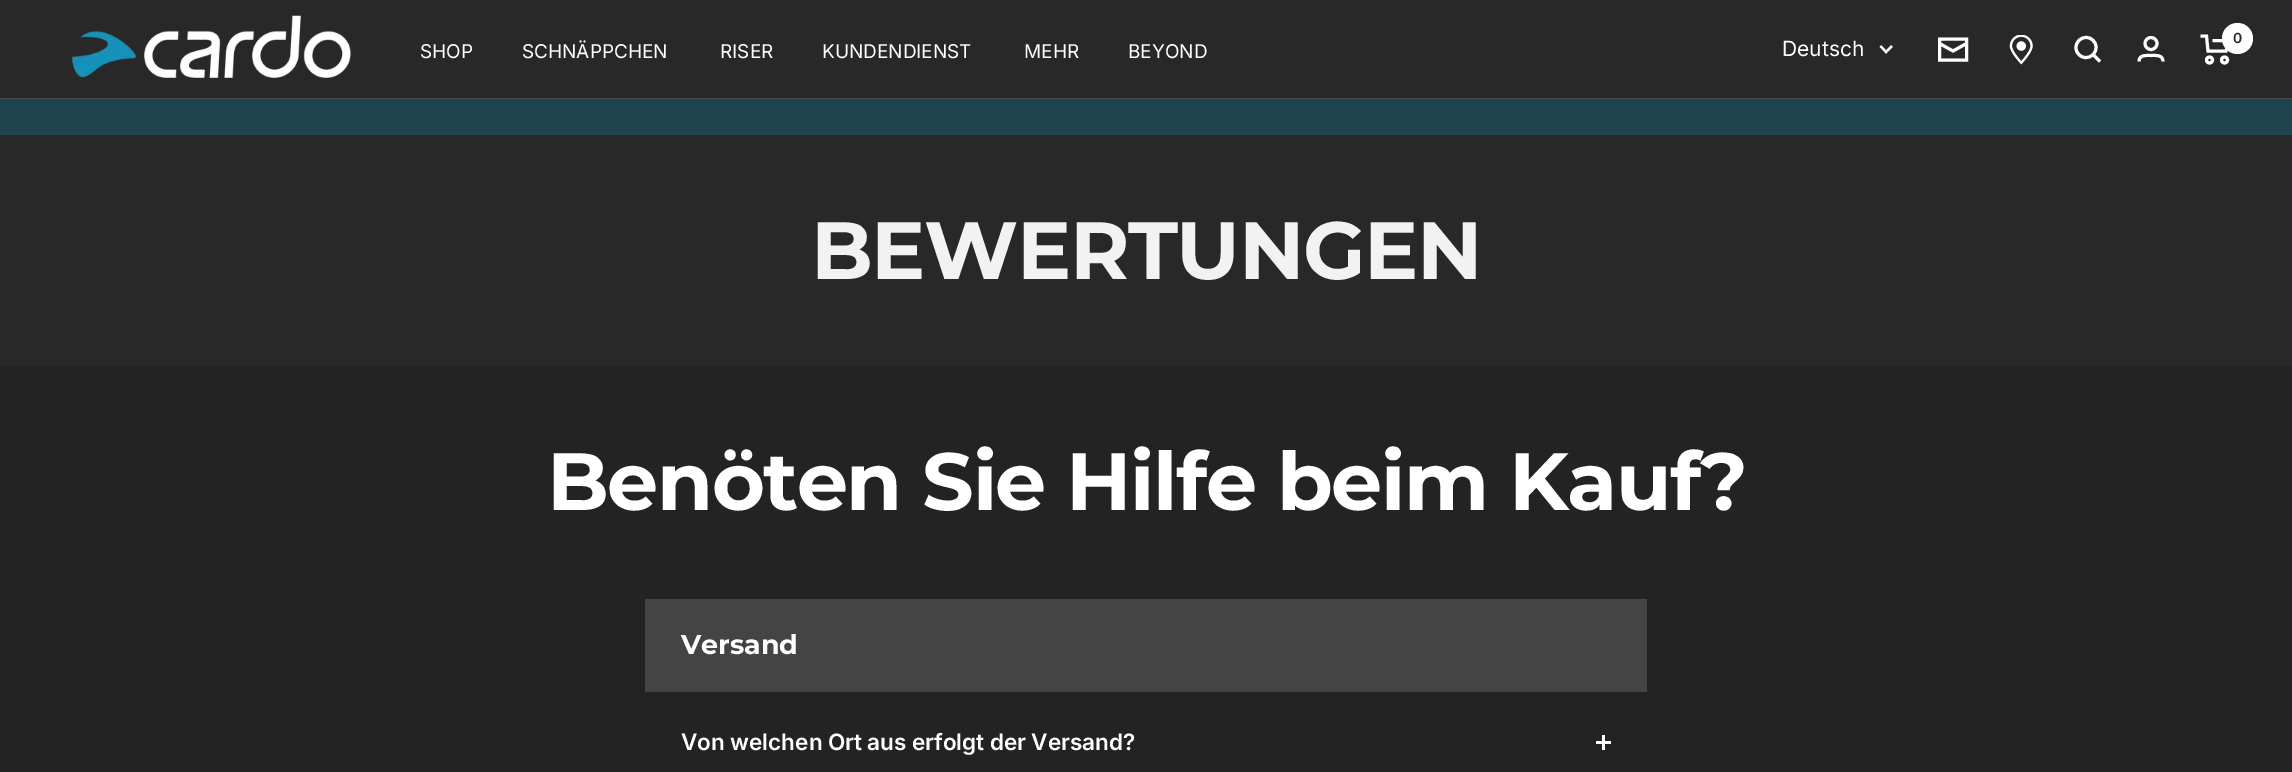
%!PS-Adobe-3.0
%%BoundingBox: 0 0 2292 772
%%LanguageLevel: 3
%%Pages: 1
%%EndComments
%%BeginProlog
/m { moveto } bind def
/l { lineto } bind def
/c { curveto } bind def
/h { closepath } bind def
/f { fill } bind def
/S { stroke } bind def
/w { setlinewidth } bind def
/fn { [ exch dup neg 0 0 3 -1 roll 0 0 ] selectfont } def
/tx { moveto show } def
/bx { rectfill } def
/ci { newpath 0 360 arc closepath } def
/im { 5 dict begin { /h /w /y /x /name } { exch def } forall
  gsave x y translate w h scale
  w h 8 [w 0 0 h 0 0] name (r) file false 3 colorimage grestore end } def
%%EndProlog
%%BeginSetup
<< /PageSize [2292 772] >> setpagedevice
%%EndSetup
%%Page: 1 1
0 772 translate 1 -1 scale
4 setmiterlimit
0.157 setgray
0 0 2292 772 bx
0.275 setgray
0 98 2292 1 bx
(image0.raw) 72 15 279 63 im
/Inter-Regular 19 fn
1 setgray
(SHOP) 420 58 tx
(SCHNÄPPCHEN) 522 58 tx
(RISER) 720 58 tx
(KUNDENDIENST) 822 58 tx
(MEHR) 1024 58 tx
(BEYOND) 1128 58 tx
3 w
1966.5 43.5 m 1953 51 l 1939.5 43.5 l 1939.5 39 m 1966.5 39 l 1966.5 60 l 1939.5 60 l h S
(image1.raw) 2009 35 24 30 im
2093 54.5 m 2102.5 45 2088.5 31 2079 40.5 c 2069.5 50 2083.5 64 2093 54.5 c h 2093 54.5 m 2100 61.5 l S
2151 43.5 6 ci S
2139 61.5 m 2139 54.5 2146.5 55.5 2151 55.5 c 2155.5 55.5 2163 54.5 2163 61.5 c S
2200.5 36 m 2206.5 36 l 2208 51 l 2226 51 l 2229 40.5 l 2212.5 40.5 l S
2209.5 60 3 ci S
2224.5 60 3 ci S
2237.5 38.5 15.5 ci f
/Inter-SemiBold 14 fn
0.157 setgray
(0) 2233 43 tx
/Inter-Regular 21 fn
1 setgray
(Deutsch) 1782 56 tx
2.2 w
1880.5 46 m 1886 52 l 1892 46 l S
0.122 0.263 0.31 setrgbcolor
0 99 2292 36 bx
/Montserrat-Bold 81 fn
0.949 setgray
811 279 m -1.5 0 (BEWERTUNGEN) ashow
0.137 setgray
0 366 2292 406 bx
1 setgray
547 510 m -1.5 0 (Benöten Sie Hilfe beim Kauf?) ashow
0.267 setgray
645 599 1002 93 bx
/Montserrat-Bold 27 fn
1 setgray
(Versand) 681 654 tx
/Inter-SemiBold 22.5 fn
681 750 m -0.25 0 32 (Von welchen Ort aus erfolgt der Versand?) widthshow
1602 735 3 15 bx
1596 741 15 3 bx
showpage
%%EOF
